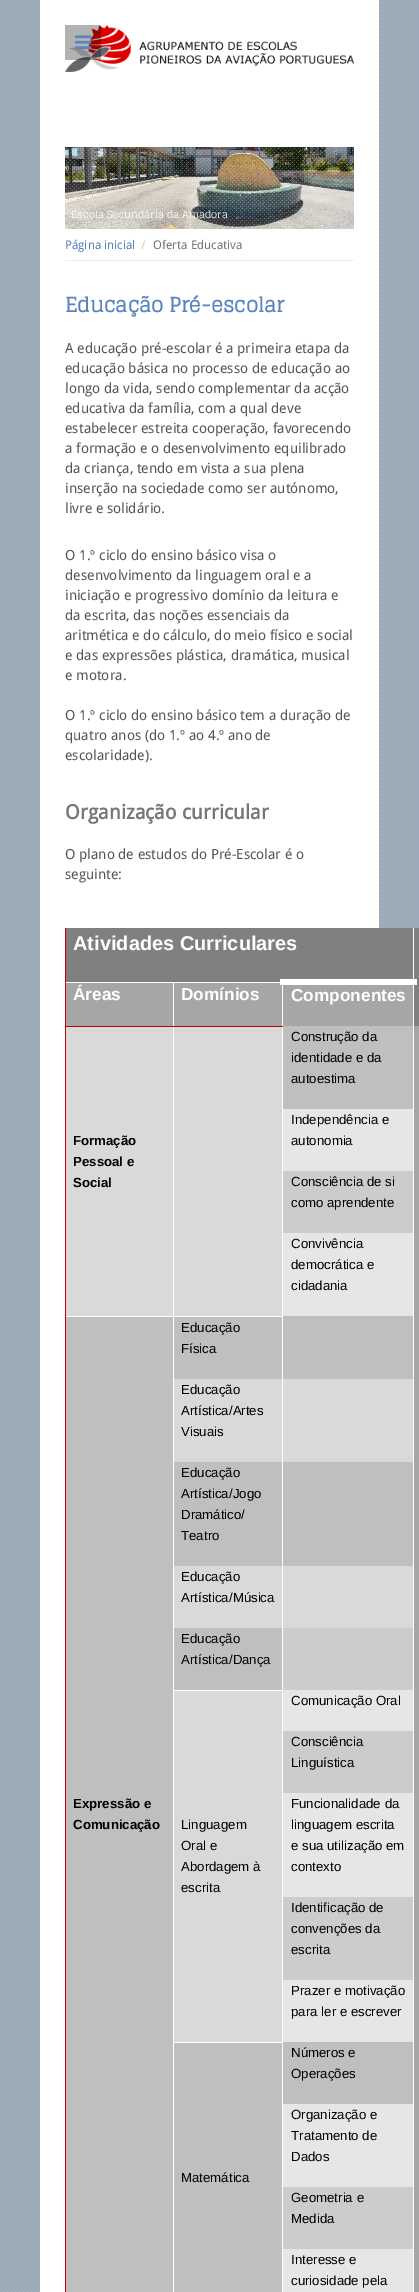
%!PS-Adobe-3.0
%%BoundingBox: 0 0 419 2292
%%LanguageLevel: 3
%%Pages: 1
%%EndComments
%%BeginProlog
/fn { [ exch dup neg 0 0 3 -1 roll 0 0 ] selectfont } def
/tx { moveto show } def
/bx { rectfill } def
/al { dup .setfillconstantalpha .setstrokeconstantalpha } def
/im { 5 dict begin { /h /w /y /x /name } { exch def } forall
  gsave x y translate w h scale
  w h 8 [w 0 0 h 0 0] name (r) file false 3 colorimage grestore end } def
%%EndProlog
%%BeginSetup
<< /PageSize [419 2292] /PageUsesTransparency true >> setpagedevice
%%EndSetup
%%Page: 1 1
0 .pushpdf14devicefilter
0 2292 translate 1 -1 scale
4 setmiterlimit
0.604 0.659 0.722 setrgbcolor
0 0 419 2292 bx
(image0.raw) 1 1 417 2291 im
1 setgray
40 0 339 2292 bx
(image1.raw) 65 25 289 47 im
0.3 al
0 setgray
65 25 36 35 bx
1 al
(image2.raw) 75 35 17 14 im
(image3.raw) 65 147 289 82 im
(image4.raw) 66 148 287 81 im
/Glegoo-Regular 10 fn
1 setgray
(Escola Secundária da Amadora) 71 218 tx
0.933 setgray
65 260 289 1 bx
/DroidSans-Regular 12 fn
0.349 0.518 0.749 setrgbcolor
(Página inicial) 65 249 tx
0.8 setgray
(/) 141 249 tx
0.467 setgray
(Oferta Educativa) 153 249 tx
/Glegoo-Bold 20 fn
0.349 0.518 0.749 setrgbcolor
(Educação Pré-escolar) 65 312 tx
/DroidSans-Regular 14 fn
0.333 setgray
(A educação pré-escolar é a primeira etapa da) 65 353 tx
(educação básica no processo de educação ao) 65 373 tx
(longo da vida, sendo complementar da acção) 65 393 tx
(educativa da família, com a qual deve) 65 413 tx
(estabelecer estreita cooperação, favorecendo) 65 433 tx
(a formação e o desenvolvimento equilibrado) 65 453 tx
(da criança, tendo em vista a sua plena) 65 473 tx
(inserção na sociedade como ser autónomo,) 65 493 tx
(livre e solidário.) 65 513 tx
(O 1.º ciclo do ensino básico visa o) 65 560 tx
(desenvolvimento da linguagem oral e a) 65 580 tx
(iniciação e progressivo domínio da leitura e) 65 600 tx
(da escrita, das noções essenciais da) 65 620 tx
(aritmética e do cálculo, do meio físico e social) 65 640 tx
(e das expressões plástica, dramática, musical) 65 660 tx
(e motora.) 65 680 tx
(O 1.º ciclo do ensino básico tem a duração de) 65 720 tx
(quatro anos \(do 1.º ao 4.º ano de) 65 740 tx
(escolaridade\).) 65 760 tx
/DroidSans-Bold 20 fn
0.467 setgray
(Organização curricular) 65 819 tx
/DroidSans-Regular 14 fn
0.333 setgray
(O plano de estudos do Pré-Escolar é o) 65 859 tx
(seguinte:) 65 879 tx
0.502 setgray
66 928 347 54 bx
/LiberationSans-Bold 20 fn
1 setgray
(Atividades Curriculares) 73 950 tx
0.502 setgray
414 928 5 98 bx
0.651 setgray
66 983 107 43 bx
0.753 0 0 setrgbcolor
173 1026 110 1 bx
1 setgray
173 1026 1 1 bx
0.753 0 0 setrgbcolor
65 1316 1 976 bx
1 setgray
65 1316 1 1 bx
0.753 0 0 setrgbcolor
65 1026 1 291 bx
65 1026 109 1 bx
65 928 1 99 bx
/LiberationSans-Bold 17.25 fn
1 setgray
(Áreas) 73 1000 tx
0.651 setgray
174 983 108 43 bx
1 setgray
(Domínios) 181 1000 tx
0.651 setgray
283 985 130 41 bx
1 setgray
413 928 1 1364 bx
280 979 137 6 bx
(Componentes) 291 1001 tx
0.851 setgray
174 1027 108 289 bx
0.749 setgray
283 1026 130 83 bx
/LiberationSans-Regular 13.25 fn
0 setgray
(Construção da) 291 1041 tx
(identidade e da) 291 1062 tx
(autoestima) 291 1083 tx
0.651 setgray
414 1026 5 1266 bx
0.851 setgray
66 1027 107 289 bx
/LiberationSans-Bold 13.25 fn
0 setgray
(Formação) 73 1145 tx
(Pessoal e) 73 1166 tx
(Social) 73 1187 tx
0.902 setgray
283 1109 130 62 bx
/LiberationSans-Regular 13.25 fn
0 setgray
(Independência e) 291 1124 tx
(autonomia) 291 1145 tx
0.8 setgray
283 1171 130 62 bx
0 setgray
(Consciência de si) 291 1186 tx
(como aprendente) 291 1207 tx
0.902 setgray
283 1233 130 83 bx
0 setgray
(Convivência) 291 1248 tx
(democrática e) 291 1269 tx
(cidadania) 291 1290 tx
0.749 setgray
174 1317 108 62 bx
0 setgray
(Educação) 181 1332 tx
(Física) 181 1353 tx
0.749 setgray
283 1316 130 63 bx
66 1317 107 975 bx
/LiberationSans-Bold 13.25 fn
0 setgray
(Expressão e) 73 1808 tx
(Comunicação) 73 1829 tx
0.851 setgray
174 1379 108 83 bx
/LiberationSans-Regular 13.25 fn
0 setgray
(Educação) 181 1394 tx
(Artística/Artes) 181 1415 tx
(Visuais) 181 1436 tx
0.851 setgray
283 1379 130 83 bx
0.749 setgray
174 1462 108 104 bx
0 setgray
(Educação) 181 1477 tx
(Artística/Jogo) 181 1498 tx
(Dramático/) 181 1519 tx
(Teatro) 181 1540 tx
0.749 setgray
283 1462 130 104 bx
0.851 setgray
174 1566 108 62 bx
0 setgray
(Educação) 181 1581 tx
(Artística/Música) 181 1602 tx
0.851 setgray
283 1566 130 62 bx
0.749 setgray
174 1628 108 62 bx
0 setgray
(Educação) 181 1643 tx
(Artística/Dança) 181 1664 tx
0.8 setgray
283 1628 130 62 bx
0.902 setgray
283 1690 130 41 bx
0 setgray
(Comunicação Oral) 291 1705 tx
0.851 setgray
174 1691 108 351 bx
0 setgray
(Linguagem) 181 1829 tx
(Oral e) 181 1850 tx
(Abordagem à) 181 1871 tx
(escrita) 181 1892 tx
0.8 setgray
283 1731 130 62 bx
0 setgray
(Consciência) 291 1746 tx
(Linguística) 291 1767 tx
0.902 setgray
283 1793 130 104 bx
0 setgray
(Funcionalidade da) 291 1808 tx
(linguagem escrita) 291 1829 tx
(e sua utilização em) 291 1850 tx
(contexto) 291 1871 tx
0.8 setgray
283 1897 130 83 bx
0 setgray
(Identificação de) 291 1912 tx
(convenções da) 291 1933 tx
(escrita) 291 1954 tx
0.902 setgray
283 1980 130 62 bx
0 setgray
(Prazer e motivação) 291 1995 tx
(para ler e escrever) 291 2016 tx
0.749 setgray
283 2042 130 62 bx
0 setgray
(Números e) 291 2057 tx
(Operações) 291 2078 tx
0.749 setgray
174 2043 108 249 bx
0 setgray
(Matemática) 181 2182 tx
0.902 setgray
283 2104 130 83 bx
0 setgray
(Organização e) 291 2119 tx
(Tratamento de) 291 2140 tx
(Dados) 291 2161 tx
0.8 setgray
283 2187 130 62 bx
0 setgray
(Geometria e) 291 2202 tx
(Medida) 291 2223 tx
0.902 setgray
283 2249 130 43 bx
0 setgray
(Interesse e) 291 2264 tx
(curiosidade pela) 291 2285 tx
.poppdf14devicefilter showpage
%%EOF
